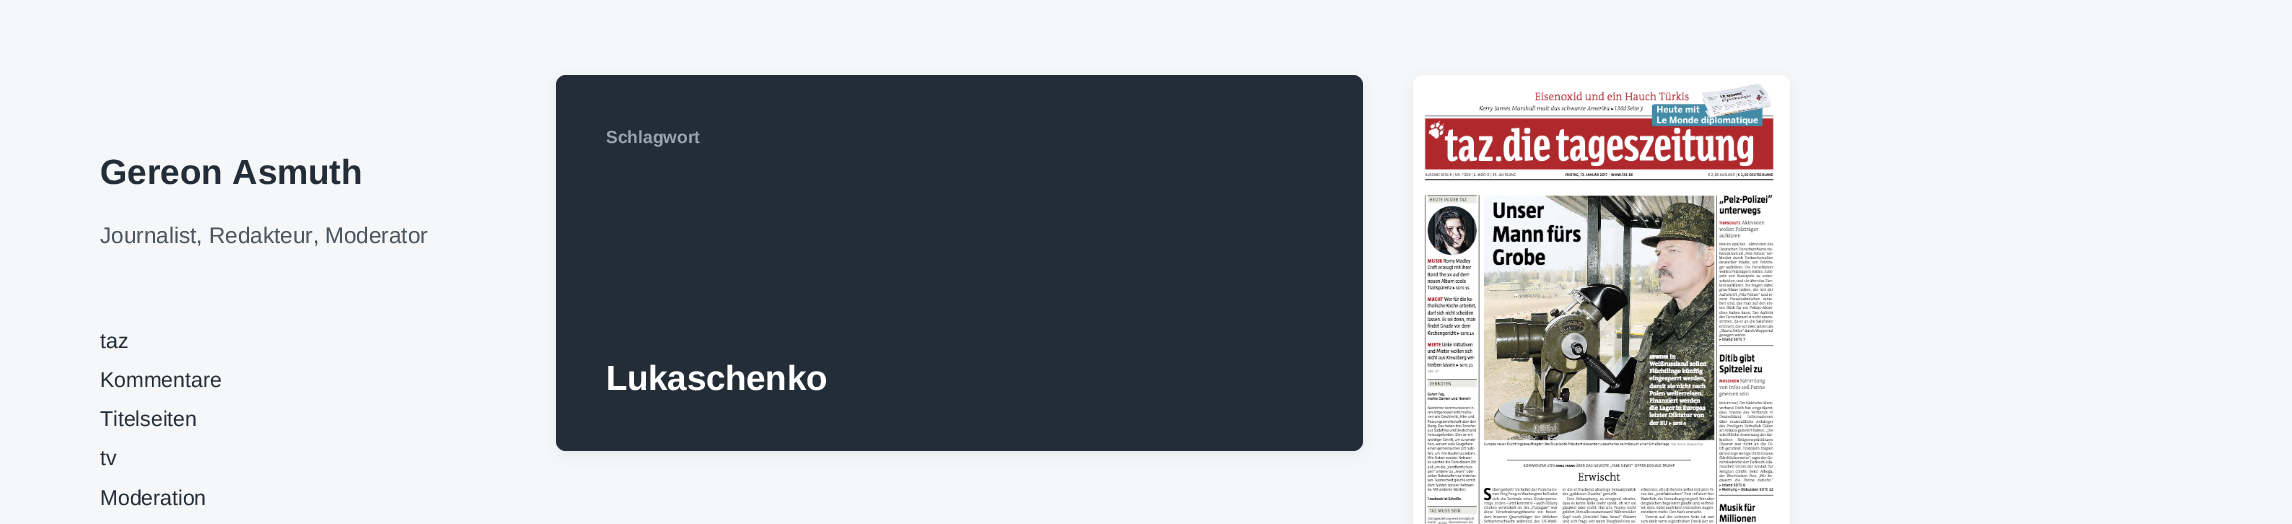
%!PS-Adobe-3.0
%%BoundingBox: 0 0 2292 524
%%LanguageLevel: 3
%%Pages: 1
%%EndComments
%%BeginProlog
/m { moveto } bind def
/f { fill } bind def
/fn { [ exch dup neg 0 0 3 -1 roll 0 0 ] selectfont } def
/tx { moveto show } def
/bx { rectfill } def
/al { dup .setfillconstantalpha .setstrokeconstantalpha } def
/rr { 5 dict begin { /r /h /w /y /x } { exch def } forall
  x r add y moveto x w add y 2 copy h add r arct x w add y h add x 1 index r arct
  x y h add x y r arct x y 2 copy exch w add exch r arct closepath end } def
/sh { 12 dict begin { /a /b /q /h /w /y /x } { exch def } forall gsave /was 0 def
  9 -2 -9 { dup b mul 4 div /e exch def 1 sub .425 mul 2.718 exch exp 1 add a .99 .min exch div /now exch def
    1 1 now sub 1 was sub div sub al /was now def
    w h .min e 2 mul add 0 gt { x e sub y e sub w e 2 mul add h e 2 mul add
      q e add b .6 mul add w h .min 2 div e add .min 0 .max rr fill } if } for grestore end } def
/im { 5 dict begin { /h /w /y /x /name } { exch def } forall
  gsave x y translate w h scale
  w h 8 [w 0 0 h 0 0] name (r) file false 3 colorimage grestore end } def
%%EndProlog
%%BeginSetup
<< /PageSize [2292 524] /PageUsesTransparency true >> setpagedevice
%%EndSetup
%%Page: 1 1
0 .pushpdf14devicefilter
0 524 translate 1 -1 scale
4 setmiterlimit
0.965 0.969 0.973 setrgbcolor
0 0 2292 524 bx
/LiberationSans-Bold 35 fn
0.137 0.176 0.216 setrgbcolor
(Gereon Asmuth) 100 184 tx
/LiberationSans-Regular 22.5 fn
0.294 0.333 0.373 setrgbcolor
(Journalist, Redakteur, Moderator) 100 243 tx
/LiberationSans-Regular 21.25 fn
0.137 0.176 0.216 setrgbcolor
(taz) 100 348 tx
(Kommentare) 100 387 tx
(Titelseiten) 100 426 tx
(tv) 100 465 tx
(Moderation) 100 505 tx
0.02 0.039 0.059 setrgbcolor
556 79 807 376 10 7.5 0.05 sh
0.137 0.176 0.216 setrgbcolor
556 75 807 376 10 rr f
/LiberationSans-Bold 17.5 fn
0.608 0.647 0.686 setrgbcolor
(Schlagwort) 606 143 tx
/LiberationSans-Bold 35 fn
1 setgray
606 390 m -0.25 0 (Lukaschenko) ashow
0.02 0.039 0.059 setrgbcolor
1413 79 377 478 10 7.5 0.05 sh
1 setgray
1413 75 377 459 10 rr f
(image0.raw) 1413 81 361 443 im
.poppdf14devicefilter showpage
%%EOF
